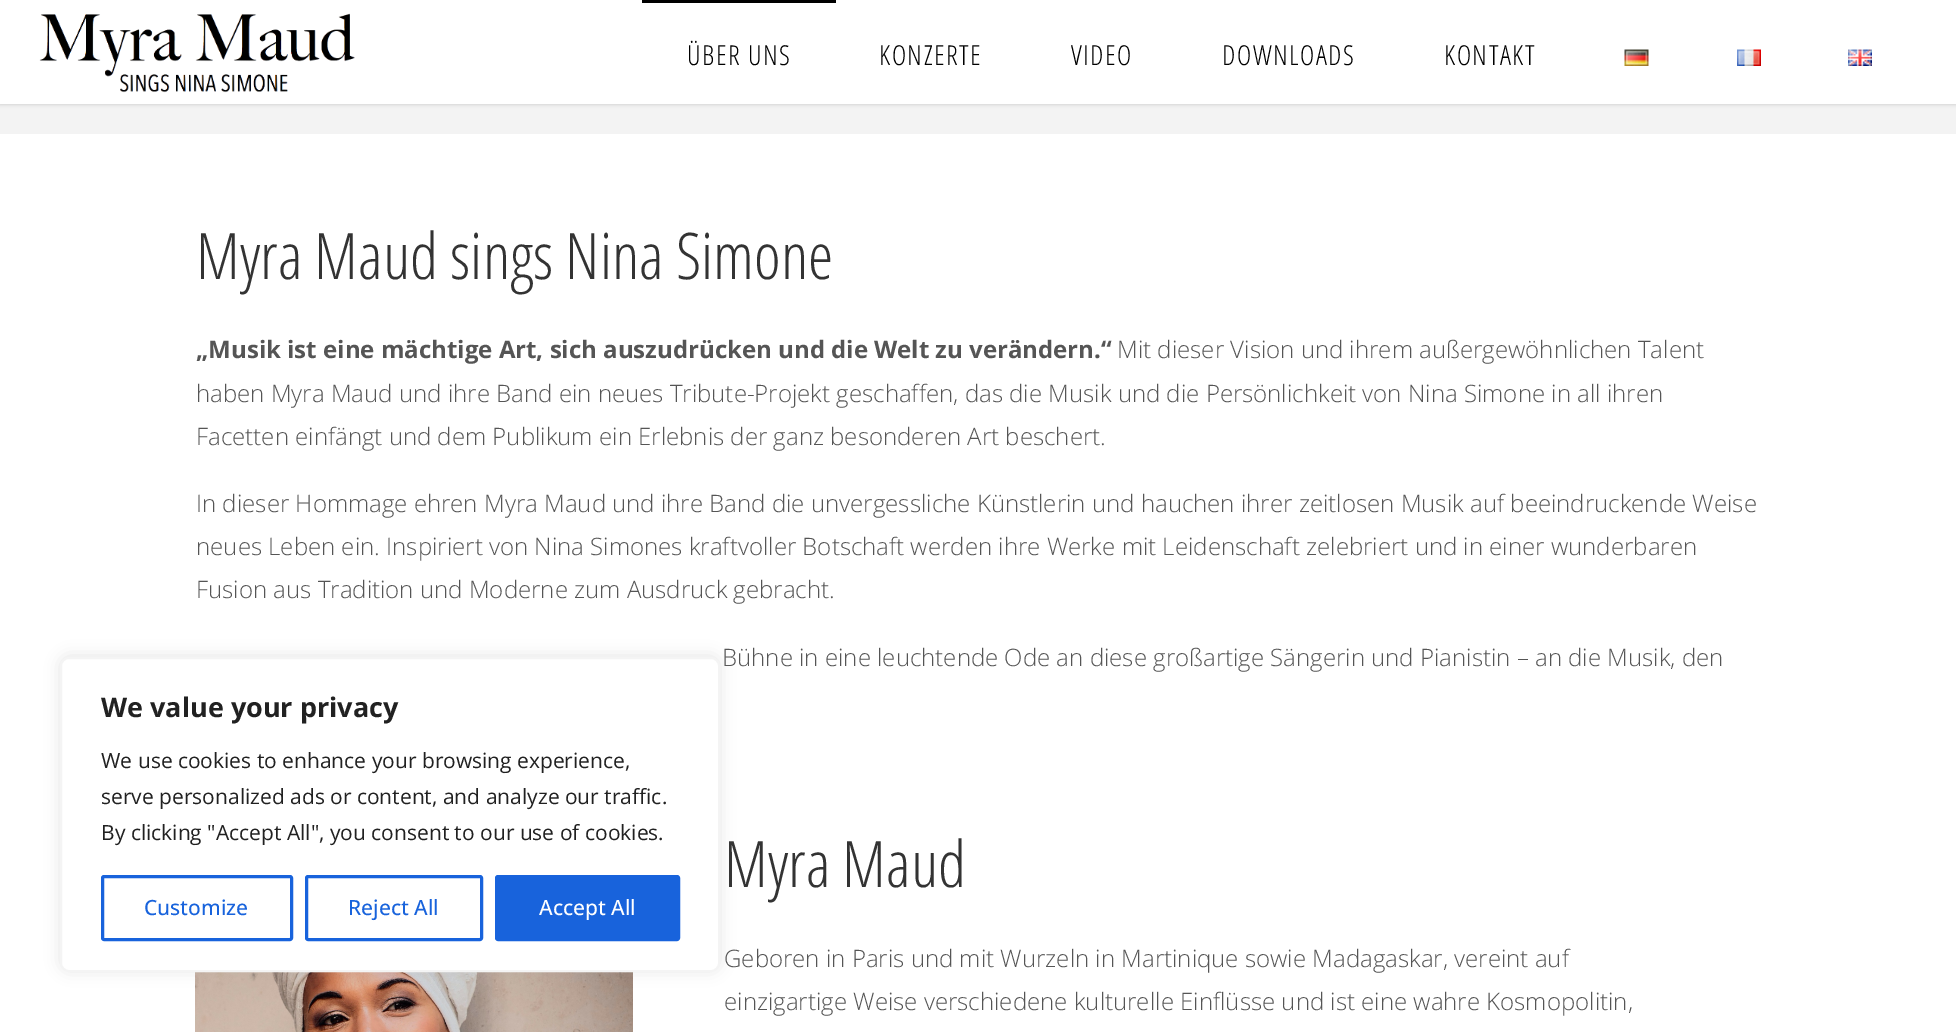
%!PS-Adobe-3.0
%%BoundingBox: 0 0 1956 1032
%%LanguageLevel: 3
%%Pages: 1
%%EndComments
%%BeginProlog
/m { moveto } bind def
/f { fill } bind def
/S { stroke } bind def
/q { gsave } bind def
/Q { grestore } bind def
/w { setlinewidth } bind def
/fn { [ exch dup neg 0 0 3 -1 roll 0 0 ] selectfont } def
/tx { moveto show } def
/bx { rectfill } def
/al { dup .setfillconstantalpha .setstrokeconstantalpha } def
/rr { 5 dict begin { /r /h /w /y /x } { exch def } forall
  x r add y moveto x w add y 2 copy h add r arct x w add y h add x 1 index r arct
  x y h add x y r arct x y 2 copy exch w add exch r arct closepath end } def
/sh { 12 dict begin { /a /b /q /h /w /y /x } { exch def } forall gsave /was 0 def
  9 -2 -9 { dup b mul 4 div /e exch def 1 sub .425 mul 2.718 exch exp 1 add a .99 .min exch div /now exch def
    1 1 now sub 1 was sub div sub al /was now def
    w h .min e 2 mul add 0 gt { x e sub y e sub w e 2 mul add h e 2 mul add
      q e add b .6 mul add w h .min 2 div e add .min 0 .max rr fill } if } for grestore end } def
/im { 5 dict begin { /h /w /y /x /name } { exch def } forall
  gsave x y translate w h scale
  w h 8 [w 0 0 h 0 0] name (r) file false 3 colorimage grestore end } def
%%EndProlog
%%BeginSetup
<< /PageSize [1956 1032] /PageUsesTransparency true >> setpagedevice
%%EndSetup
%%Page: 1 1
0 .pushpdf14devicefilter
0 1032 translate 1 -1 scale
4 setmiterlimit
0.953 setgray
0 0 1956 1032 bx
0 setgray
0 0 1956 104 0 2 0.2 sh
1 setgray
0 0 1956 104 bx
(image0.raw) 39 13 316 80 im
0 setgray
642 0 194 3 bx
/OpenSansCondensed-Light 27.5 fn
687 65 m 1.5 0 (ÜBER UNS) ashow
879 65 m 1.5 0 (KONZERTE) ashow
1071 65 m 1.5 0 (VIDEO) ashow
1222 65 m 1.5 0 (DOWNLOADS) ashow
1444 65 m 1.5 0 (KONTAKT) ashow
(image1.raw) 1624 49 25 17 im
(image2.raw) 1737 49 24 17 im
(image3.raw) 1848 49 24 17 im
1 setgray
0 134 1956 898 bx
/OpenSansCondensed-Light 64.25 fn
0.2 setgray
(Myra Maud sings Nina Simone) 196 279 tx
/OpenSans-Bold 24 fn
0.333 setgray
(„Musik ist eine mächtige Art, sich auszudrücken und die Welt zu verändern.“) 196 358 tx
/OpenSans-Light 24 fn
(Mit dieser Vision und ihrem außergewöhnlichen Talent) 1117 358 tx
(haben Myra Maud und ihre Band ein neues Tribute-Projekt geschaffen, das die Musik und die Persönlichkeit von Nina Simone in all ihren) 196 402 tx
(Facetten einfängt und dem Publikum ein Erlebnis der ganz besonderen Art beschert.) 196 445 tx
(In dieser Hommage ehren Myra Maud und ihre Band die unvergessliche Künstlerin und hauchen ihrer zeitlosen Musik auf beeindruckende Weise) 196 512 tx
(neues Leben ein. Inspiriert von Nina Simones kraftvoller Botschaft werden ihre Werke mit Leidenschaft zelebriert und in einer wunderbaren) 196 555 tx
(Fusion aus Tradition und Moderne zum Ausdruck gebracht.) 196 598 tx
(Bühne in eine leuchtende Ode an diese großartige Sängerin und Pianistin – an die Musik, den) 722 666 tx
(image4.raw) 195 972 438 60 im
/OpenSansCondensed-Light 64.25 fn
0.2 setgray
(Myra Maud) 724 887 tx
/OpenSans-Light 24 fn
0.333 setgray
(Geboren in Paris und mit Wurzeln in Martinique sowie Madagaskar, vereint auf) 724 967 tx
(einzigartige Weise verschiedene kulturelle Einflüsse und ist eine wahre Kosmopolitin,) 724 1010 tx
0.675 0.671 0.671 setrgbcolor
60 656 660 315 9 7.5 0.3 sh
1 setgray
61 658 658 313 8 rr q f Q
0.957 setgray
2 w
S
/OpenSans-Bold 27 fn
0.129 setgray
(We value your privacy) 101 717 tx
/OpenSans-Regular 21 fn
(We use cookies to enhance your browsing experience,) 101 768 tx
(serve personalized ads or content, and analyze our traffic.) 101 804 tx
(By clicking "Accept All", you consent to our use of cookies.) 101 840 tx
0.094 0.388 0.863 setrgbcolor
3 w
102.5 876.5 189 63 1.5 rr S
/OpenSans-Medium 21 fn
(Customize) 144 915 tx
306.5 876.5 175 63 1.5 rr S
(Reject All) 348 915 tx
496.5 876.5 182 63 1.5 rr q f Q
S
1 setgray
(Accept All) 539 915 tx
.poppdf14devicefilter showpage
%%EOF
